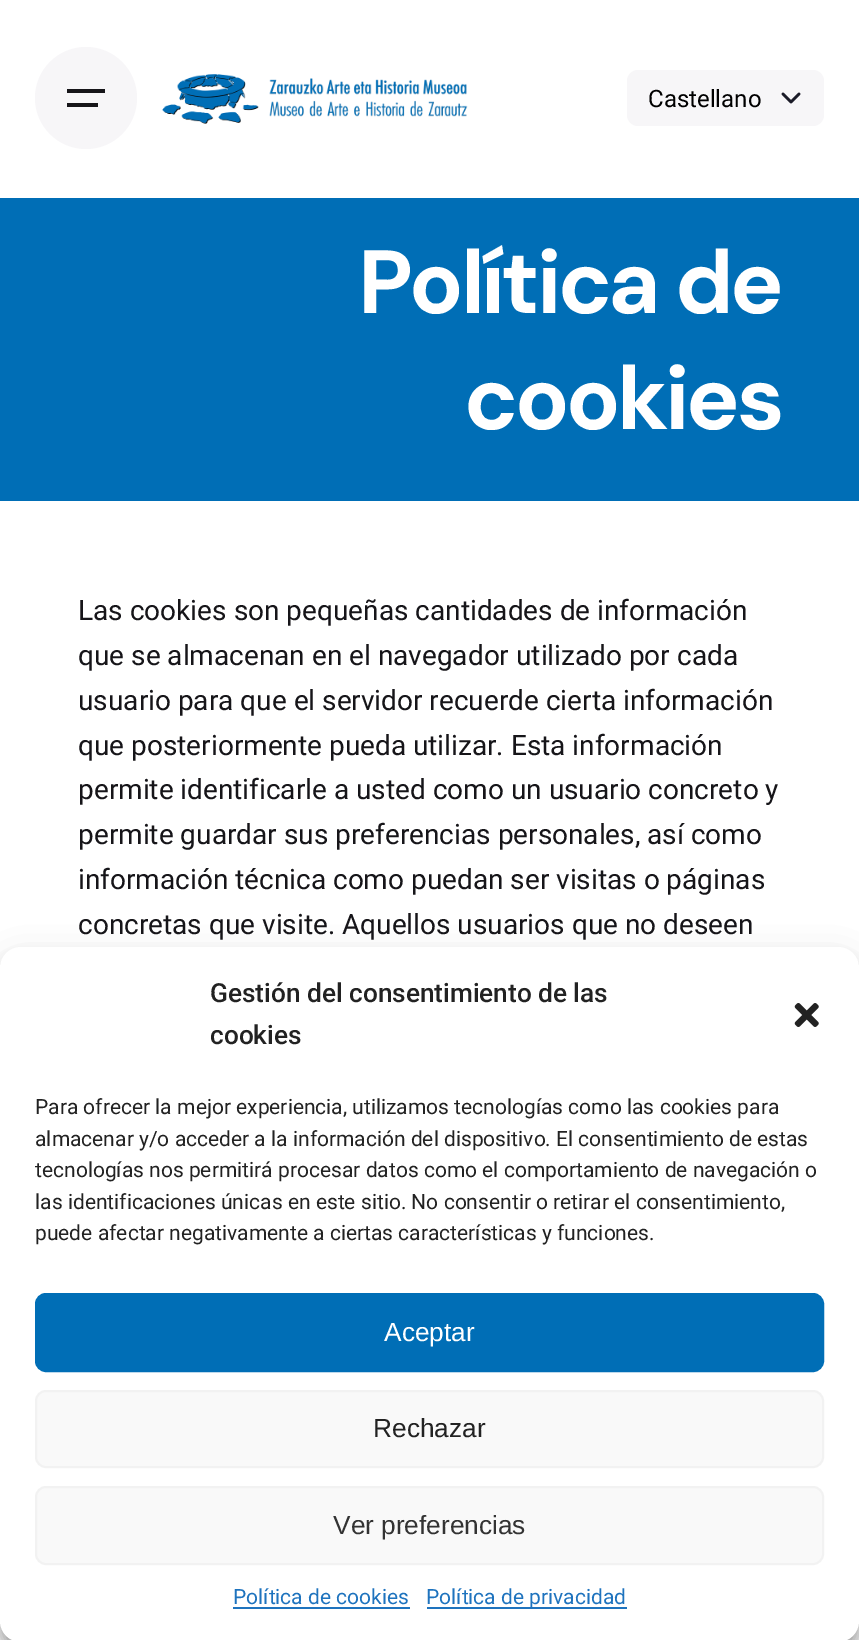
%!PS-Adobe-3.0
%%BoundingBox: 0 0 859 1640
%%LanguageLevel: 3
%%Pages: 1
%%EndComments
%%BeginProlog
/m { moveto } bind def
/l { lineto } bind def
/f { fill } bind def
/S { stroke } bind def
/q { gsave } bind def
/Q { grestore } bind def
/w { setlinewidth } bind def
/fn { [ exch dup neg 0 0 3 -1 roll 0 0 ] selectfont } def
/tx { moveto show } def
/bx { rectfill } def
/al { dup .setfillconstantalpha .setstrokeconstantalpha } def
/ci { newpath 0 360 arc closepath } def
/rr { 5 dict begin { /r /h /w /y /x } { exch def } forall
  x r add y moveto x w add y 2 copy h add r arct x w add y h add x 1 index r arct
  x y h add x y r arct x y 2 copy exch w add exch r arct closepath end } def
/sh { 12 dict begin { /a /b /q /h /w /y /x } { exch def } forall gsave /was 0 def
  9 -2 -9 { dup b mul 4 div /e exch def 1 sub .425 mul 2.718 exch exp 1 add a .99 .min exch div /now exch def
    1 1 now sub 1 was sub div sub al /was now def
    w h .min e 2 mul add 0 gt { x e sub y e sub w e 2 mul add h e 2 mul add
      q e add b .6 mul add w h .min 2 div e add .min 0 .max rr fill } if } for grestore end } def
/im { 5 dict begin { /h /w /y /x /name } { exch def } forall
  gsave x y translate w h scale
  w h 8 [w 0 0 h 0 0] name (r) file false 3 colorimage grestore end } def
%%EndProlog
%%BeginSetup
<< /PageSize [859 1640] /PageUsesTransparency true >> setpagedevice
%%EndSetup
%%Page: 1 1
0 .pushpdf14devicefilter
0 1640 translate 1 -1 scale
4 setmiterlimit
1 setgray
0 0 859 1640 bx
0.969 0.965 0.973 setrgbcolor
86 98 51 ci f
0.086 0.082 0.098 setrgbcolor
67 89 38 4 bx
67 103 31 4 bx
(image0.raw) 162 74 306 50 im
0.969 0.965 0.973 setrgbcolor
627 70 197 56 11 rr f
0.106 0.106 0.157 setrgbcolor
2.6 w
1 setlinecap
1 setlinejoin
783 94 m 791 102 l 799 94 l S
/Roboto-Regular 24 fn
0 setgray
(Castellano) 648 107 tx
0 0.431 0.714 setrgbcolor
0 198 859 303 bx
/DMSans-Bold 89.5 fn
1 setgray
358 313 m -3.5 0 (Política de) ashow
464 429 m -3.5 0 (cookies) ashow
/Roboto-Regular 28 fn
0.086 0.082 0.098 setrgbcolor
(Las cookies son pequeñas cantidades de información) 78 620 tx
(que se almacenan en el navegador utilizado por cada) 78 665 tx
(usuario para que el servidor recuerde cierta información) 78 710 tx
(que posteriormente pueda utilizar. Esta información) 78 755 tx
(permite identificarle a usted como un usuario concreto y) 78 799 tx
(permite guardar sus preferencias personales, así como) 78 844 tx
(información técnica como puedan ser visitas o páginas) 78 889 tx
(concretas que visite. Aquellos usuarios que no deseen) 78 934 tx
0 setgray
0 957 859 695 21 5 0.23 sh
0 964 859 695 21 17.5 0.19 sh
0.502 setgray
737 1512 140 105 4 4.5 1 sh
1 setgray
0 947 859 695 21 rr f
/Roboto-Medium 26.25 fn
0.133 setgray
(Gestión del consentimiento de las) 210 1002 tx
(cookies) 210 1044 tx
(image1.raw) 794 1003 25 24 im
/Roboto-Regular 21 fn
(Para ofrecer la mejor experiencia, utilizamos tecnologías como las cookies para) 35 1114 tx
(almacenar y/o acceder a la información del dispositivo. El consentimiento de estas) 35 1146 tx
(tecnologías nos permitirá procesar datos como el comportamiento de navegación o) 35 1177 tx
(las identificaciones únicas en este sitio. No consentir o retirar el consentimiento,) 35 1209 tx
(puede afectar negativamente a ciertas características y funciones.) 35 1240 tx
0 0.431 0.714 setrgbcolor
36 1294 787 77 10 rr q f Q
2 w
0 setlinecap
0 setlinejoin
S
/LiberationSans-Regular 26.25 fn
1 setgray
(Aceptar) 384 1341 tx
0.976 setgray
36 1391 787 76 10 rr q f Q
0.949 setgray
S
0.133 setgray
(Rechazar) 373 1437 tx
0.976 setgray
36 1487 787 77 10 rr q f Q
0.949 setgray
S
0.2 setgray
(Ver preferencias) 333 1534 tx
/Roboto-Regular 21 fn
0.118 0.451 0.745 setrgbcolor
(Política de cookies) 233 1604 tx
233 1607 177 2 bx
427 1607 200 2 bx
(Política de privacidad) 426 1604 tx
.poppdf14devicefilter showpage
%%EOF
